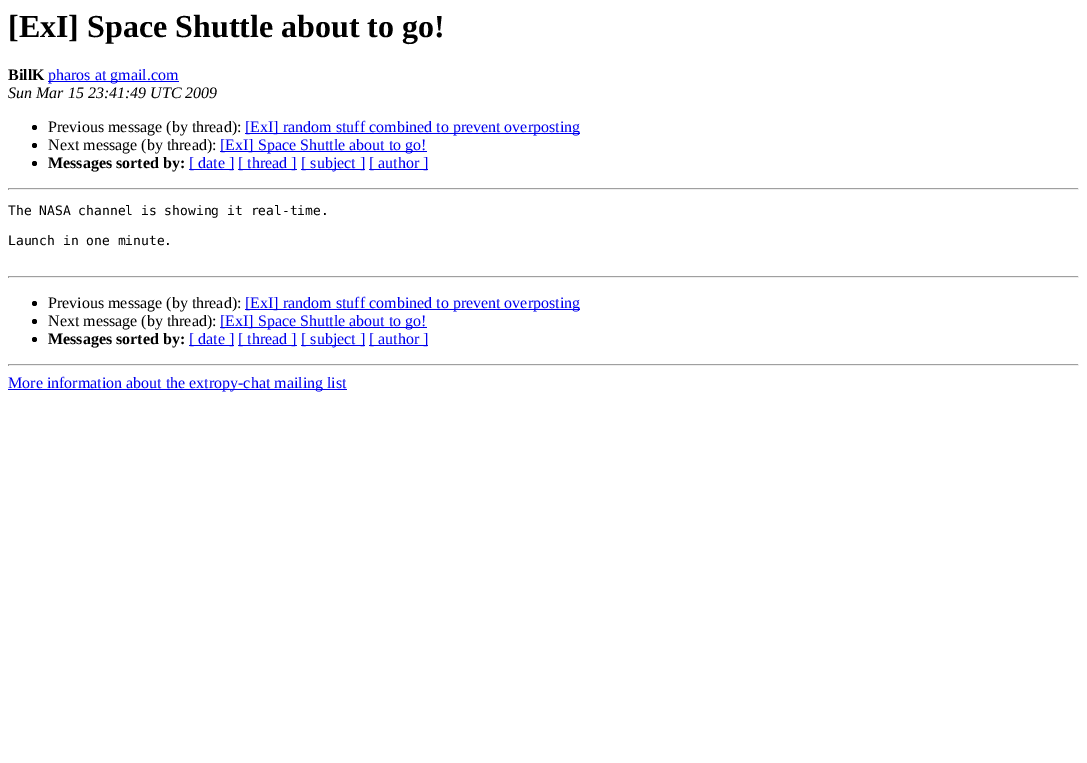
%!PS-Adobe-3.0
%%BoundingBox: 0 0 1087 763
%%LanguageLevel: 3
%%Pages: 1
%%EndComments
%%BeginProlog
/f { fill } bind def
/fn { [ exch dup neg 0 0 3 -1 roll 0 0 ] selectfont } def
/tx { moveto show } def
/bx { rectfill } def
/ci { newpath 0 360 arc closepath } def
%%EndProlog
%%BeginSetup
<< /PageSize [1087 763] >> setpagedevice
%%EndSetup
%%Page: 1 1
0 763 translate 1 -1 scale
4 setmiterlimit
1 setgray
0 0 1087 763 bx
/LiberationSerif-Bold 32 fn
0 setgray
([ExI] Space Shuttle about to go!) 8 37 tx
/LiberationSerif-Bold 16 fn
(BillK) 8 80 tx
0 0 0.933 setrgbcolor
48 81 131 1 bx
/LiberationSerif-Regular 16 fn
(pharos at gmail.com) 48 80 tx
/LiberationSerif-Italic 16 fn
0 setgray
(Sun Mar 15 23:41:49 UTC 2009) 8 98 tx
34.5 127.5 2.5 ci f
/LiberationSerif-Regular 16 fn
(Previous message \(by thread\):) 48 132 tx
0 0 0.933 setrgbcolor
245 133 335 1 bx
([ExI] random stuff combined to prevent overposting) 245 132 tx
0 setgray
34.5 145.5 2.5 ci f
(Next message \(by thread\):) 48 150 tx
0 0 0.933 setrgbcolor
220 151 207 1 bx
([ExI] Space Shuttle about to go!) 220 150 tx
0 setgray
34.5 163.5 2.5 ci f
/LiberationSerif-Bold 16 fn
(Messages sorted by:) 48 168 tx
0 0 0.933 setrgbcolor
189 169 45 1 bx
/LiberationSerif-Regular 16 fn
([ date ]) 189 168 tx
238 169 59 1 bx
([ thread ]) 238 168 tx
301 169 64 1 bx
([ subject ]) 301 168 tx
369 169 59 1 bx
([ author ]) 369 168 tx
0.624 setgray
8 188 1071 1 bx
0.933 setgray
1078 188 1 2 bx
8 189 1071 1 bx
0.624 setgray
8 188 1 2 bx
/DejaVuSansMono-Regular 13 fn
0 setgray
(The NASA channel is showing it real-time.) 8 215 tx
(Launch in one minute.) 8 245 tx
0.624 setgray
8 276 1071 1 bx
0.933 setgray
1078 276 1 2 bx
8 277 1071 1 bx
0.624 setgray
8 276 1 2 bx
0 setgray
34.5 303.5 2.5 ci f
/LiberationSerif-Regular 16 fn
(Previous message \(by thread\):) 48 308 tx
0 0 0.933 setrgbcolor
245 309 335 1 bx
([ExI] random stuff combined to prevent overposting) 245 308 tx
0 setgray
34.5 321.5 2.5 ci f
(Next message \(by thread\):) 48 326 tx
0 0 0.933 setrgbcolor
220 327 207 1 bx
([ExI] Space Shuttle about to go!) 220 326 tx
0 setgray
34.5 339.5 2.5 ci f
/LiberationSerif-Bold 16 fn
(Messages sorted by:) 48 344 tx
0 0 0.933 setrgbcolor
189 345 45 1 bx
/LiberationSerif-Regular 16 fn
([ date ]) 189 344 tx
238 345 59 1 bx
([ thread ]) 238 344 tx
301 345 64 1 bx
([ subject ]) 301 344 tx
369 345 59 1 bx
([ author ]) 369 344 tx
0.624 setgray
8 364 1071 1 bx
0.933 setgray
1078 364 1 2 bx
8 365 1071 1 bx
0.624 setgray
8 364 1 2 bx
0 0 0.933 setrgbcolor
8 389 339 1 bx
(More information about the extropy-chat mailing list) 8 388 tx
showpage
%%EOF
